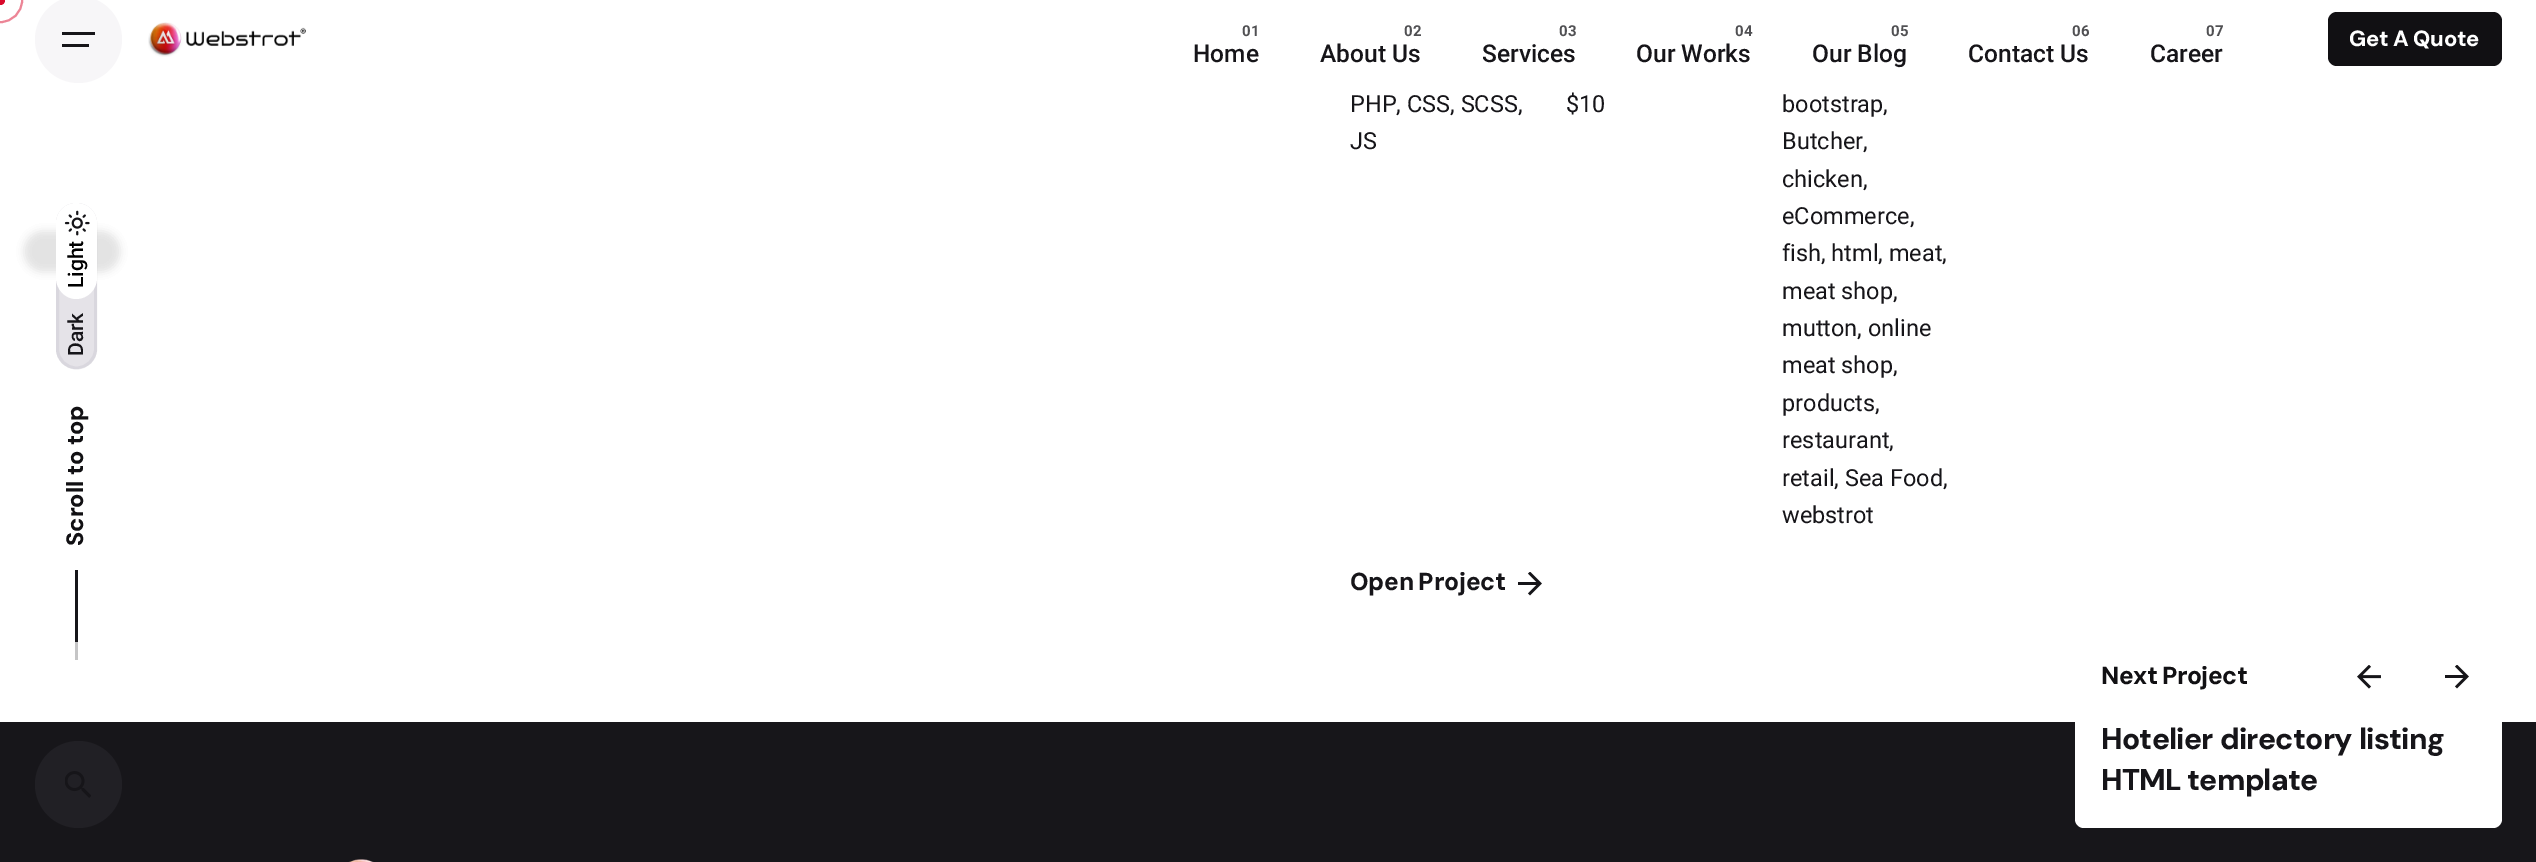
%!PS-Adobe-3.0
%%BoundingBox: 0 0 2536 862
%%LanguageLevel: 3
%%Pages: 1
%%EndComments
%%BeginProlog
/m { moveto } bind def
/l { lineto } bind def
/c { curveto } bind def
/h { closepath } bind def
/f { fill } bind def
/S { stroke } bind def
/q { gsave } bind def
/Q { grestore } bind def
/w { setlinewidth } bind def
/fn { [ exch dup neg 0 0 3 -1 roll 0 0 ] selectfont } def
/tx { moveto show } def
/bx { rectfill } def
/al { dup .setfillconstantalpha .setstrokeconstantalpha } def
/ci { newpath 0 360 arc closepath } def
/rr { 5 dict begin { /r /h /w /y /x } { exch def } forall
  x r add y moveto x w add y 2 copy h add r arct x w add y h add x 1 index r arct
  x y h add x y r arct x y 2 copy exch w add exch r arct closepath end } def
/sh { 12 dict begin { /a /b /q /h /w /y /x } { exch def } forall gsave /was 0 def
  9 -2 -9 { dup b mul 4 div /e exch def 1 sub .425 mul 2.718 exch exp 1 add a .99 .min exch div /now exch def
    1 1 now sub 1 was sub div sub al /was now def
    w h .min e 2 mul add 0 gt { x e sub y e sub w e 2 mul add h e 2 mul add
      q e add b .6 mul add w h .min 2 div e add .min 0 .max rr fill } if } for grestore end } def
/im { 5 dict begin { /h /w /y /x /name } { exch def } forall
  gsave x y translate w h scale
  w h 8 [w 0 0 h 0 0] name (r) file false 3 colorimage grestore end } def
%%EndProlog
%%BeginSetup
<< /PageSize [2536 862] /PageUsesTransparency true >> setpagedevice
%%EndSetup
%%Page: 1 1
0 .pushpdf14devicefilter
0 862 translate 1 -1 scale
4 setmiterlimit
1 setgray
0 0 2536 862 bx
0.925 0.522 0.588 setrgbcolor
2 w
0.5 0.5 21.5 ci S
0.851 0.039 0.173 setrgbcolor
0.5 0.5 4.5 ci f
0.25 al
0.588 0.565 0.635 setrgbcolor
56 349 m 56 223 l 56 212 65 203 76 203 c 88 203 97 212 97 223 c 97 349 l 97 360 88 369 76 369 c 65 369 56 360 56 349 c h f
0.15 al
3 w
57.5 349 m 57.5 223.5 l 57.5 213 66 204.5 76.5 204.5 c 87 204.5 95.5 213 95.5 223.5 c 95.5 349 l 95.5 359.5 87 368 76.5 368 c 66 368 57.5 359.5 57.5 349 c h S
1 al
0.067 0.063 0.075 setrgbcolor
24 231 96 41 20.5 4.5 0.05 sh
24 231 96 41 20.5 4.5 0.05 sh
1 setgray
56 278 m 56 223 l 56 212 65 203 76 203 c 88 203 97 212 97 223 c 97 278 l 97 289 88 299 76 299 c 65 299 56 289 56 278 c h f
(image0.raw) 64 210 26 26 im
/Roboto-Medium 21 fn
0 setgray
q 83 288 translate -90 rotate 0 0 m (Light) show Q
0.086 0.082 0.098 setrgbcolor
q 83 356 translate -90 rotate 0 0 m (Dark) show Q
/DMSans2-ExtraBold 23.5 fn
0.067 0.063 0.075 setrgbcolor
q 83 546 translate -90 rotate 0 0 m (Scroll to top) show Q
0.086 0.082 0.098 setrgbcolor
75 570 3 72 bx
0.773 0.773 0.776 setrgbcolor
75 642 3 18 bx
0.969 0.965 0.973 setrgbcolor
78.5 39.5 43.5 ci f
0.086 0.082 0.098 setrgbcolor
62 32 33 3 bx
62 44 27 3 bx
(image1.raw) 148 22 158 35 im
/Roboto-Bold 15 fn
0.314 0.314 0.325 setrgbcolor
(01) 1242 36 tx
/Roboto-Medium 24.5 fn
0.086 0.082 0.098 setrgbcolor
(Home) 1193 62 tx
/Roboto-Bold 15 fn
0.314 0.314 0.325 setrgbcolor
(02) 1404 36 tx
/Roboto-Medium 24.5 fn
0.086 0.082 0.098 setrgbcolor
(About Us) 1320 62 tx
/Roboto-Bold 15 fn
0.314 0.314 0.325 setrgbcolor
(03) 1559 36 tx
/Roboto-Medium 24.5 fn
0.086 0.082 0.098 setrgbcolor
(Services) 1482 62 tx
/Roboto-Bold 15 fn
0.314 0.314 0.325 setrgbcolor
(04) 1735 36 tx
/Roboto-Medium 24.5 fn
0.086 0.082 0.098 setrgbcolor
(Our Works) 1636 62 tx
/Roboto-Bold 15 fn
0.314 0.314 0.325 setrgbcolor
(05) 1891 36 tx
/Roboto-Medium 24.5 fn
0.086 0.082 0.098 setrgbcolor
(Our Blog) 1812 62 tx
/Roboto-Bold 15 fn
0.314 0.314 0.325 setrgbcolor
(06) 2072 36 tx
/Roboto-Medium 24.5 fn
0.086 0.082 0.098 setrgbcolor
(Contact Us) 1968 62 tx
/Roboto-Bold 15 fn
0.314 0.314 0.325 setrgbcolor
(07) 2206 36 tx
/Roboto-Medium 24.5 fn
0.086 0.082 0.098 setrgbcolor
(Career) 2150 62 tx
0.067 0.063 0.075 setrgbcolor
2328 12 174 54 9 rr f
/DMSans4-ExtraBold 22 fn
1 setgray
2349 46 m -0.25 0 (Get A Quote) ashow
/Roboto-Regular 23.5 fn
0.086 0.082 0.098 setrgbcolor
(PHP, CSS, SCSS,) 1350 112 tx
(JS) 1350 149 tx
($10) 1566 112 tx
(bootstrap,) 1782 112 tx
(Butcher,) 1782 149 tx
(chicken,) 1782 187 tx
(eCommerce,) 1782 224 tx
(fish, html, meat,) 1782 261 tx
(meat shop,) 1782 299 tx
(mutton, online) 1782 336 tx
(meat shop,) 1782 373 tx
(products,) 1782 411 tx
(restaurant,) 1782 448 tx
(retail, Sea Food,) 1782 486 tx
(webstrot) 1782 523 tx
/DMSans-ExtraBold 24.5 fn
1350 590 m -1 0 32 -0.25 0 (Open Project) awidthshow
(image2.raw) 1518 572 24 24 im
0.09 0.086 0.102 setrgbcolor
0 722 2536 140 bx
1 setgray
2075 609 427 219 9 rr f
0.067 0.063 0.075 setrgbcolor
2101 684 m -1 0 32 -0.5 0 (Next Project) awidthshow
(image3.raw) 2357 665 24 24 im
(image2.raw) 2445 665 24 24 im
/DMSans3-ExtraBold 30 fn
0.086 0.082 0.098 setrgbcolor
2101 749 m 1 0 32 -0.75 0 (Hotelier directory listing) awidthshow
2101 790 m -0.75 0 (HTML template) ashow
(image4.raw) 348 859 26 3 im
0.129 0.125 0.145 setrgbcolor
78.5 784.5 43.5 ci f
(image5.raw) 65 771 26 27 im
.poppdf14devicefilter showpage
%%EOF
